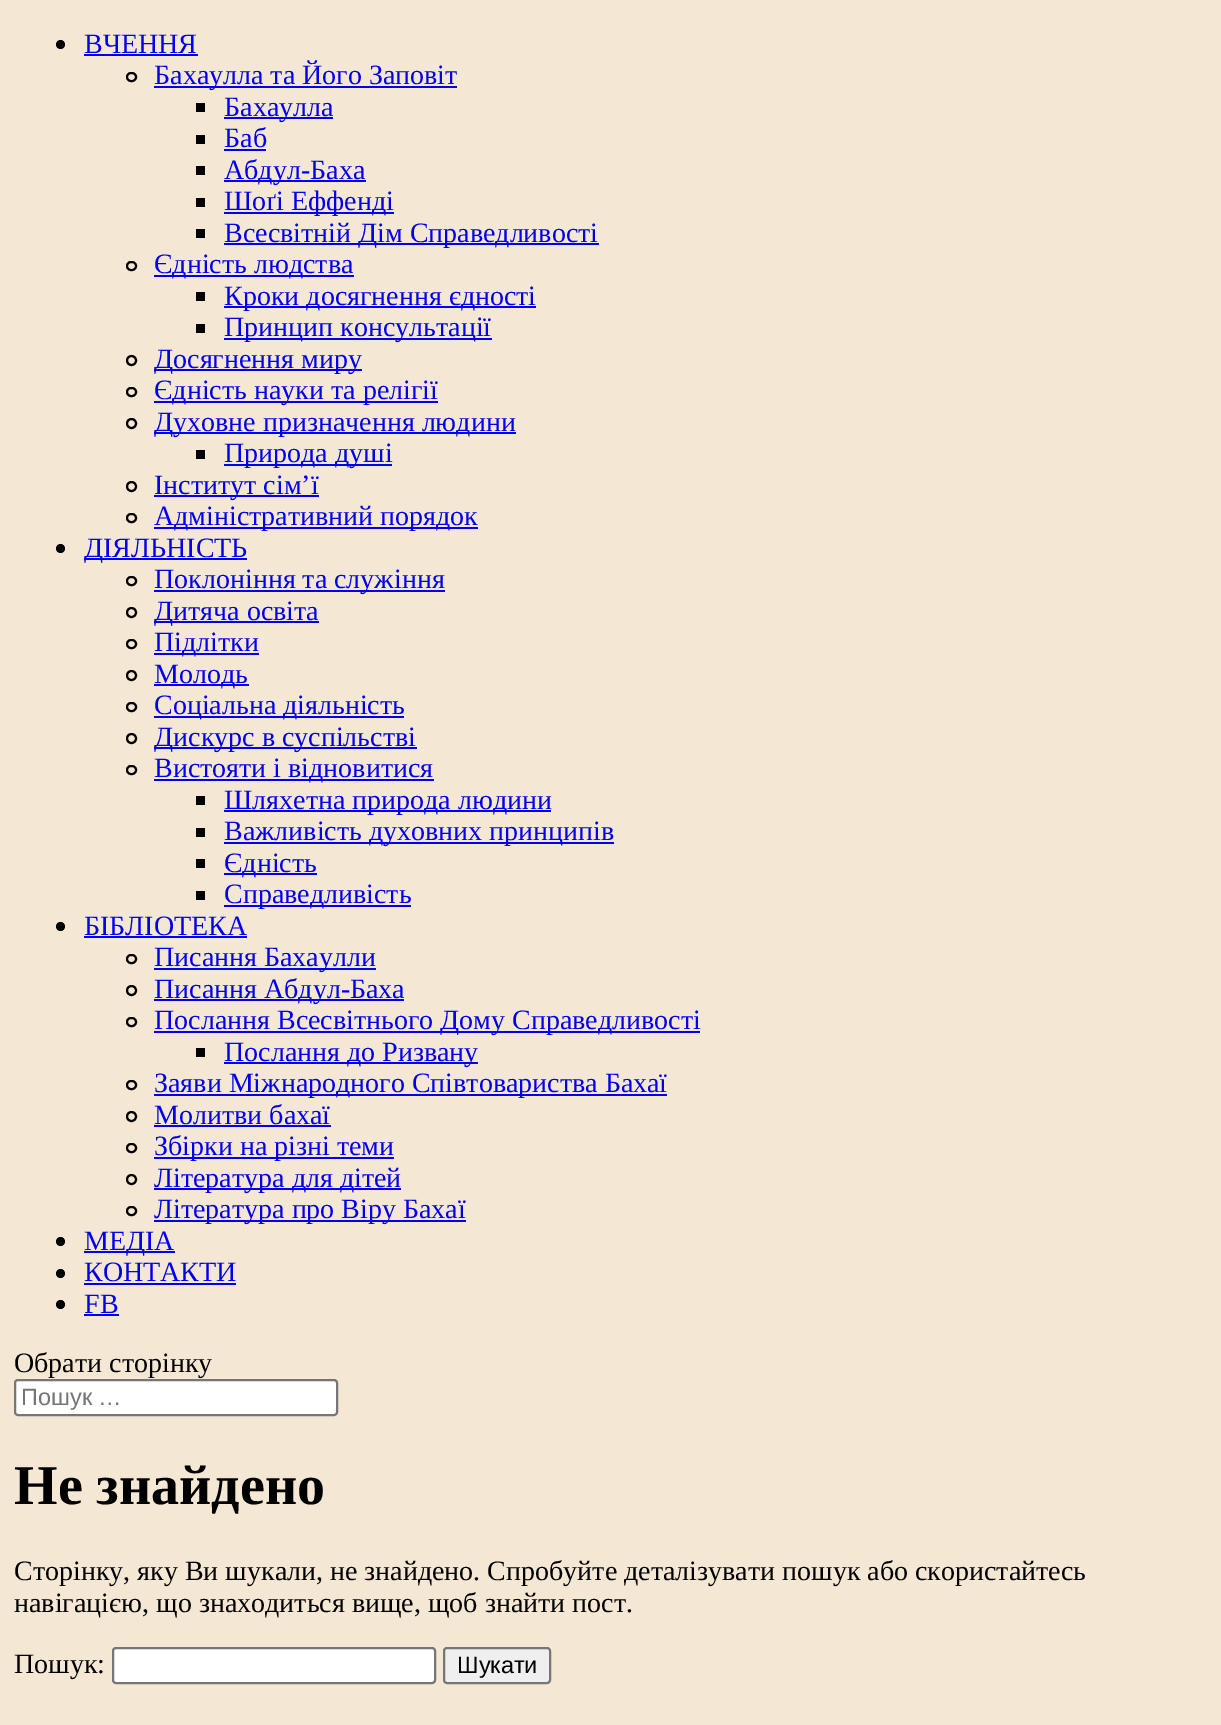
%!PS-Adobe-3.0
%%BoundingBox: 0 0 1221 1725
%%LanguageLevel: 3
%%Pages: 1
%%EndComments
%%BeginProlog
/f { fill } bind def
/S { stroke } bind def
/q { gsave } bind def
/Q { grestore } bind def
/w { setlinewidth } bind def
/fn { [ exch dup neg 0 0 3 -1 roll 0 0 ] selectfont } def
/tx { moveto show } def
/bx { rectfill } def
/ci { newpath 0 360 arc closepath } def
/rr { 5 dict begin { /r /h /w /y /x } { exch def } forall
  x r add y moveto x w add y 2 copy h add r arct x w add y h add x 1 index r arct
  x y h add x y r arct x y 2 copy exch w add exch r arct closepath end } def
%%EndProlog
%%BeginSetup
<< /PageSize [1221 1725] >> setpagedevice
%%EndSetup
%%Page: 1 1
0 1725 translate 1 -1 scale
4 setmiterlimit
0.957 0.906 0.831 setrgbcolor
0 0 1221 1725 bx
0 setgray
60.5 44.5 4.5 ci f
/LiberationSerif-Regular 28 fn
0 0 0.933 setrgbcolor
(ВЧЕННЯ) 84 53 tx
84 54 114 2 bx
0 setgray
2 w
127 73 9 8 4 rr S
0 0 0.933 setrgbcolor
154 86 303 2 bx
(Бахаулла та Його Заповіт) 154 84 tx
0 setgray
196 103 9 9 bx
0 0 0.933 setrgbcolor
224 117 109 2 bx
(Бахаулла) 224 116 tx
0 setgray
196 135 9 9 bx
0 0 0.933 setrgbcolor
(Баб) 224 147 tx
224 149 42 2 bx
0 setgray
196 166 9 9 bx
0 0 0.933 setrgbcolor
224 180 142 2 bx
(Абдул-Баха) 224 179 tx
0 setgray
196 198 9 9 bx
0 0 0.933 setrgbcolor
224 212 170 2 bx
(Шоґі Еффенді) 224 210 tx
0 setgray
196 229 9 9 bx
0 0 0.933 setrgbcolor
224 243 375 2 bx
(Всесвітній Дім Справедливості) 224 242 tx
0 setgray
127 262 9 8 4 rr S
0 0 0.933 setrgbcolor
154 275 200 2 bx
(Єдність людства) 154 273 tx
0 setgray
196 292 9 9 bx
0 0 0.933 setrgbcolor
224 306 312 2 bx
(Кроки досягнення єдності) 224 305 tx
0 setgray
196 324 9 9 bx
0 0 0.933 setrgbcolor
224 338 268 2 bx
(Принцип консультації) 224 336 tx
0 setgray
131.5 360.5 4.5 ci S
0 0 0.933 setrgbcolor
154 369 208 2 bx
(Досягнення миру) 154 368 tx
0 setgray
127 388 9 8 4 rr S
0 0 0.933 setrgbcolor
154 401 284 2 bx
(Єдність науки та релігії) 154 399 tx
0 setgray
131.5 423.5 4.5 ci S
0 0 0.933 setrgbcolor
154 432 362 2 bx
(Духовне призначення людини) 154 431 tx
0 setgray
196 450 9 9 bx
0 0 0.933 setrgbcolor
224 464 168 2 bx
(Природа душі) 224 462 tx
0 setgray
131.5 486.5 4.5 ci S
0 0 0.933 setrgbcolor
154 495 165 2 bx
(Інститут сім’ї) 154 494 tx
0 setgray
127 514 9 8 4 rr S
0 0 0.933 setrgbcolor
154 527 324 2 bx
(Адміністративний порядок) 154 525 tx
0 setgray
60.5 548.5 4.5 ci f
0 0 0.933 setrgbcolor
84 558 163 2 bx
(ДІЯЛЬНІСТЬ) 84 557 tx
0 setgray
127 577 9 8 4 rr S
0 0 0.933 setrgbcolor
154 590 291 2 bx
(Поклоніння та служіння) 154 588 tx
0 setgray
131.5 612.5 4.5 ci S
0 0 0.933 setrgbcolor
154 621 165 2 bx
(Дитяча освіта) 154 620 tx
0 setgray
127 640 9 8 4 rr S
0 0 0.933 setrgbcolor
154 653 105 2 bx
(Підлітки) 154 651 tx
0 setgray
131.5 675.5 4.5 ci S
0 0 0.933 setrgbcolor
154 684 95 2 bx
(Молодь) 154 683 tx
0 setgray
127 703 9 8 4 rr S
0 0 0.933 setrgbcolor
154 716 250 2 bx
(Соціальна діяльність) 154 714 tx
0 setgray
131.5 738.5 4.5 ci S
0 0 0.933 setrgbcolor
154 747 263 2 bx
(Дискурс в суспільстві) 154 746 tx
0 setgray
127 766 9 8 4 rr S
0 0 0.933 setrgbcolor
154 779 280 2 bx
(Вистояти і відновитися) 154 777 tx
0 setgray
196 796 9 9 bx
0 0 0.933 setrgbcolor
224 810 327 2 bx
(Шляхетна природа людини) 224 809 tx
0 setgray
196 828 9 9 bx
0 0 0.933 setrgbcolor
224 842 390 2 bx
(Важливість духовних принципів) 224 840 tx
0 setgray
196 859 9 9 bx
0 0 0.933 setrgbcolor
224 873 93 2 bx
(Єдність) 224 872 tx
0 setgray
196 891 9 9 bx
0 0 0.933 setrgbcolor
224 905 187 2 bx
(Справедливість) 224 903 tx
0 setgray
60.5 926.5 4.5 ci f
0 0 0.933 setrgbcolor
(БІБЛІОТЕКА) 84 935 tx
84 936 163 2 bx
0 setgray
127 955 9 8 4 rr S
0 0 0.933 setrgbcolor
154 968 222 2 bx
(Писання Бахаулли) 154 966 tx
0 setgray
131.5 990.5 4.5 ci S
0 0 0.933 setrgbcolor
154 999 250 2 bx
(Писання Абдул-Баха) 154 998 tx
0 setgray
127 1018 9 8 4 rr S
0 0 0.933 setrgbcolor
154 1031 546 2 bx
(Послання Всесвітнього Дому Справедливості) 154 1029 tx
0 setgray
196 1048 9 9 bx
0 0 0.933 setrgbcolor
224 1062 254 2 bx
(Послання до Ризвану) 224 1061 tx
0 setgray
127 1081 9 8 4 rr S
0 0 0.933 setrgbcolor
154 1094 513 2 bx
(Заяви Міжнародного Співтовариства Бахаї) 154 1092 tx
0 setgray
131.5 1116.5 4.5 ci S
0 0 0.933 setrgbcolor
(Молитви бахаї) 154 1124 tx
154 1125 177 2 bx
0 setgray
127 1144 9 8 4 rr S
0 0 0.933 setrgbcolor
154 1157 240 2 bx
(Збірки на різні теми) 154 1155 tx
0 setgray
131.5 1179.5 4.5 ci S
0 0 0.933 setrgbcolor
154 1188 247 2 bx
(Література для дітей) 154 1187 tx
0 setgray
127 1207 9 8 4 rr S
0 0 0.933 setrgbcolor
154 1220 312 2 bx
(Література про Віру Бахаї) 154 1218 tx
0 setgray
60.5 1241.5 4.5 ci f
0 0 0.933 setrgbcolor
84 1251 91 2 bx
(МЕДІА) 84 1250 tx
0 setgray
60.5 1273.5 4.5 ci f
0 0 0.933 setrgbcolor
(КОНТАКТИ) 84 1281 tx
84 1283 152 2 bx
0 setgray
60.5 1304.5 4.5 ci f
0 0 0.933 setrgbcolor
(FB) 84 1313 tx
84 1314 35 2 bx
0 setgray
(Обрати сторінку) 14 1372 tx
1 setgray
15 1380 322 35 3 rr q f Q
0.463 setgray
S
/LiberationSans-Regular 23.5 fn
0.459 setgray
(Пошук …) 21 1405 tx
/LiberationSerif-Bold 56 fn
0 setgray
(Не знайдено) 14 1504 tx
/LiberationSerif-Regular 28 fn
(Сторінку, яку Ви шукали, не знайдено. Спробуйте деталізувати пошук або скористайтесь) 14 1580 tx
(навігацією, що знаходиться вище, щоб знайти пост.) 14 1612 tx
(Пошук:) 14 1673 tx
1 setgray
113 1648 322 35 3 rr q f Q
0.463 setgray
S
0.937 setgray
444 1648 106 35 3 rr q f Q
0.463 setgray
S
/LiberationSans-Regular 23.5 fn
0 setgray
(Шукати) 457 1673 tx
showpage
%%EOF
